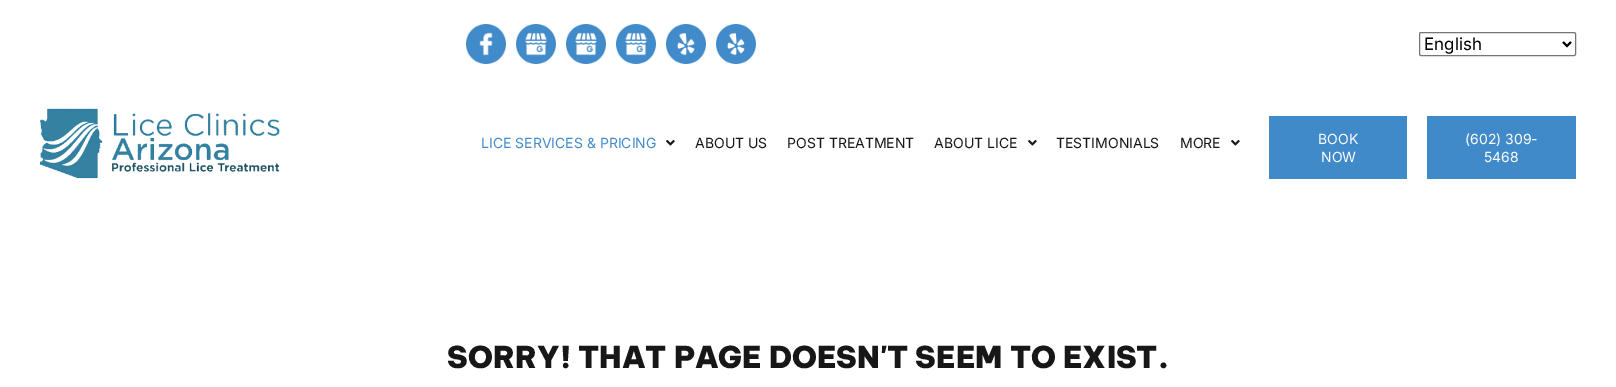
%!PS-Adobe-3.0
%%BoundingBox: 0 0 1616 387
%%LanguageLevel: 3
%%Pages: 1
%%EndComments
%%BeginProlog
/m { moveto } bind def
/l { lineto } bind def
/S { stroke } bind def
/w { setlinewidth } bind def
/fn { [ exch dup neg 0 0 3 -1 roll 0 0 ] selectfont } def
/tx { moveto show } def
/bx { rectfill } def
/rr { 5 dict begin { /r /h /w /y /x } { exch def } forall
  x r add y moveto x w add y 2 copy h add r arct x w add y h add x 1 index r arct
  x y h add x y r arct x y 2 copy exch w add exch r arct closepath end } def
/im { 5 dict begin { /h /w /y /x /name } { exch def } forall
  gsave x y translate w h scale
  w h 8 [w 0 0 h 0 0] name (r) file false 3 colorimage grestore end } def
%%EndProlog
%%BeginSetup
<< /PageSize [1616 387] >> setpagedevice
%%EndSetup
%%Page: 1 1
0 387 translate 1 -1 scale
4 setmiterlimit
1 setgray
0 0 1616 387 bx
(image0.raw) 466 24 40 40 im
(image1.raw) 516 24 40 40 im
(image1.raw) 566 24 40 40 im
(image1.raw) 616 24 40 40 im
(image2.raw) 666 24 40 40 im
(image2.raw) 716 24 40 40 im
0.463 setgray
1419.5 32.5 156 23 1.5 rr S
0 setgray
2 w
1563 42 m 1567 46 l 1571 42 l S
/Inter-Regular 17 fn
(English) 1424 50 tx
(image3.raw) 40 108 240 71 im
/Inter-Regular 14 fn
0.259 0.545 0.792 setrgbcolor
(LICE SERVICES & PRICING) 481 148 tx
(image4.raw) 666 140 9 6 im
0.09 setgray
(ABOUT US) 695 148 tx
(POST TREATMENT) 787 148 tx
(ABOUT LICE) 934 148 tx
(image4.raw) 1028 140 9 6 im
(TESTIMONIALS) 1056 148 tx
(MORE) 1180 148 tx
(image4.raw) 1231 140 9 6 im
0.255 0.541 0.788 setrgbcolor
1269 116 138 63 bx
1 setgray
(BOOK) 1318 144 tx
(NOW) 1321 162 tx
0.255 0.541 0.788 setrgbcolor
1427 116 149 63 bx
1 setgray
(\(602\) 309-) 1465 144 tx
(5468) 1484 162 tx
/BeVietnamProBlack-Black 30 fn
0.09 setgray
(SORRY! THAT PAGE DOESN'T SEEM TO EXIST.) 447 368 tx
showpage
%%EOF
